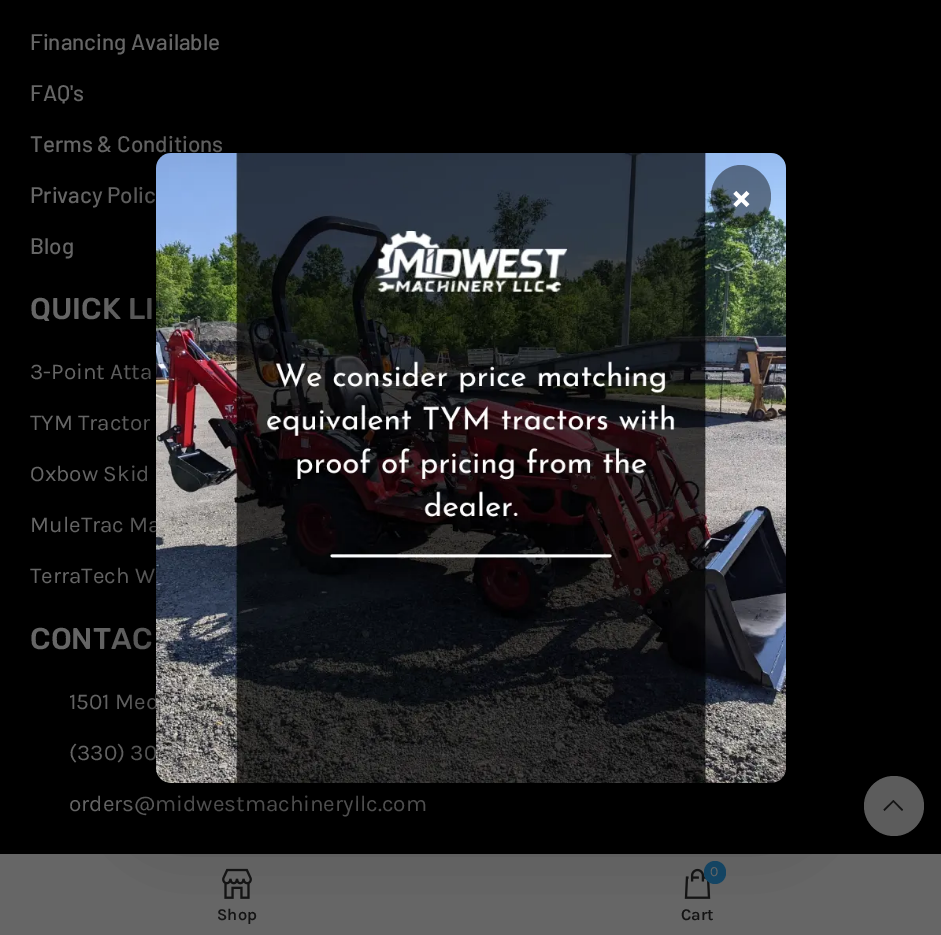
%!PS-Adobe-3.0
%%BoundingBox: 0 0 941 935
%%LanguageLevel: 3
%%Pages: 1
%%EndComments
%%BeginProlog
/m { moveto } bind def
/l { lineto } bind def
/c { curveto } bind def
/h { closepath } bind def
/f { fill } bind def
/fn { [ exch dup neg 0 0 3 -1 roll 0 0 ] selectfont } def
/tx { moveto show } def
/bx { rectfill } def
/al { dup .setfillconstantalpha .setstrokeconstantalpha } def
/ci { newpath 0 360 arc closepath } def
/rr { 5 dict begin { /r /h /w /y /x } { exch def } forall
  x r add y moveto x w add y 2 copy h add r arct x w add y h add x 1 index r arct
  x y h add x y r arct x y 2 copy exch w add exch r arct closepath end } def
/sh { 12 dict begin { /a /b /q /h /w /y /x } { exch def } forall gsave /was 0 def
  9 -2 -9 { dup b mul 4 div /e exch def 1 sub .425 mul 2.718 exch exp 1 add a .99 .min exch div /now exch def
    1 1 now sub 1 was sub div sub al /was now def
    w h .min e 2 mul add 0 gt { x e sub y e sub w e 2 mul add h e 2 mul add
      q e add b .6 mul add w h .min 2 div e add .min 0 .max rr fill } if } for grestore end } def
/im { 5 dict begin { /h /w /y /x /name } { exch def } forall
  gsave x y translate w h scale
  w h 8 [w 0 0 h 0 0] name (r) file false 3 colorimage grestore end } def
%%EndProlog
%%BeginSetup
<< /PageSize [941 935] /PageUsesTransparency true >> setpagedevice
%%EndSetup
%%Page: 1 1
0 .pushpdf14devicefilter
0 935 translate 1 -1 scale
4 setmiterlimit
0 setgray
0 0 941 935 bx
/Barlow-Medium 22.5 fn
0.4 setgray
(Financing Available) 30 50 tx
(FAQ's) 30 101 tx
(Terms & Conditions) 30 152 tx
(Privacy Polic) 30 203 tx
(Blog) 30 254 tx
/Rubik-Medium 30 fn
(QUICK LI) 30 319 tx
/Karla-Regular 22.5 fn
(3-Point Atta) 30 379 tx
(TYM Tractor) 30 430 tx
(Oxbow Skid) 30 481 tx
(MuleTrac Ma) 30 532 tx
(TerraTech W) 30 583 tx
/Rubik-Medium 30 fn
(CONTAC) 30 649 tx
/Karla-Regular 22.5 fn
(1501 Med) 69 709 tx
(\(330\) 30) 69 760 tx
(orders@midwestmachineryllc.com) 69 811 tx
0.361 setgray
894 806 30 ci f
0.078 setgray
902 811 m 903 809.5 l 893.5 800 l 883.5 809.5 l 884.5 811 l 893.5 802 l h f
0.4 setgray
0 854 941 81 bx
(image1.raw) 222 868 30 31 im
(image2.raw) 684 868 27 31 im
0.078 0.275 0.4 setrgbcolor
704 861 22 23 11 rr f
0 setgray
156 180 630 630 15 37.5 0.45 sh
0.067 setgray
156 153 630 630 15 rr f
(image0.raw) 156 153 630 630 im
0.45 al
0 setgray
741 165 m 757.5 165 771 179 771 196.5 c 771 214 757.5 228 741 228 c 724.5 228 711 214 711 196.5 c 711 179 724.5 165 741 165 c h f
/Karla-SemiBold 39 fn
1 al
1 setgray
(×) 731 209 tx
/Karla-SemiBold 16.5 fn
0.078 setgray
(Shop) 217 920 tx
/Karla-Regular 14 fn
0.4 setgray
(0) 710 876 tx
/Karla-SemiBold 16.5 fn
0.078 setgray
(Cart) 681 920 tx
.poppdf14devicefilter showpage
%%EOF
